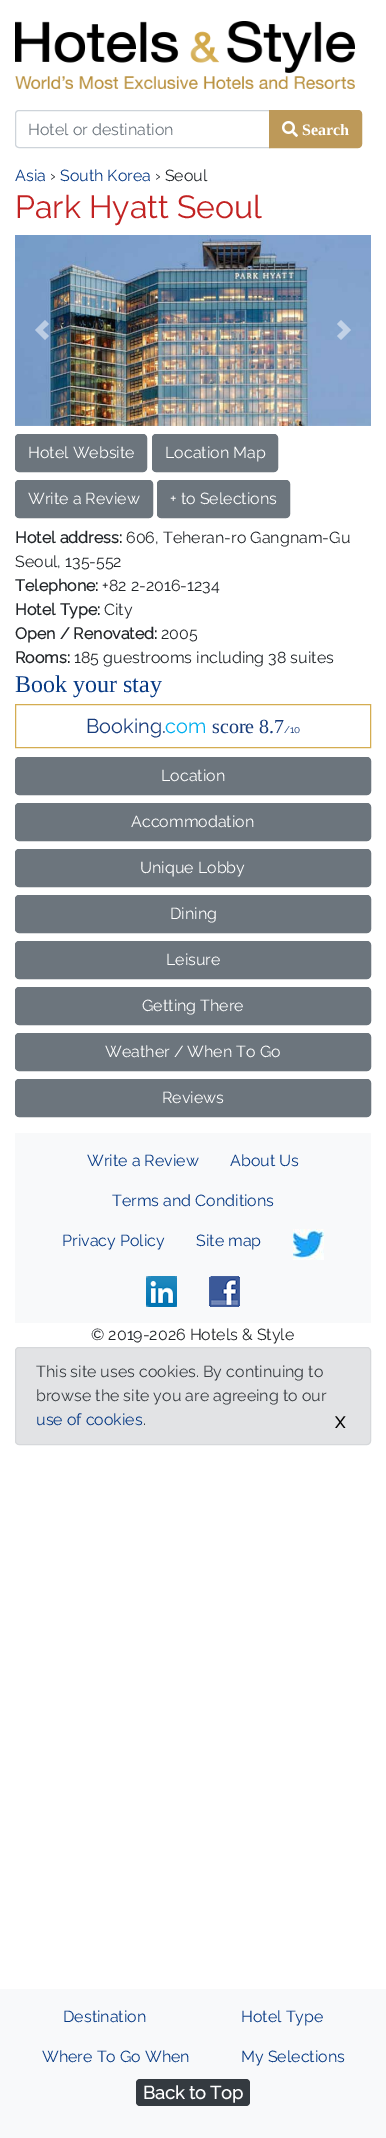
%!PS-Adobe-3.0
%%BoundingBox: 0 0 386 2138
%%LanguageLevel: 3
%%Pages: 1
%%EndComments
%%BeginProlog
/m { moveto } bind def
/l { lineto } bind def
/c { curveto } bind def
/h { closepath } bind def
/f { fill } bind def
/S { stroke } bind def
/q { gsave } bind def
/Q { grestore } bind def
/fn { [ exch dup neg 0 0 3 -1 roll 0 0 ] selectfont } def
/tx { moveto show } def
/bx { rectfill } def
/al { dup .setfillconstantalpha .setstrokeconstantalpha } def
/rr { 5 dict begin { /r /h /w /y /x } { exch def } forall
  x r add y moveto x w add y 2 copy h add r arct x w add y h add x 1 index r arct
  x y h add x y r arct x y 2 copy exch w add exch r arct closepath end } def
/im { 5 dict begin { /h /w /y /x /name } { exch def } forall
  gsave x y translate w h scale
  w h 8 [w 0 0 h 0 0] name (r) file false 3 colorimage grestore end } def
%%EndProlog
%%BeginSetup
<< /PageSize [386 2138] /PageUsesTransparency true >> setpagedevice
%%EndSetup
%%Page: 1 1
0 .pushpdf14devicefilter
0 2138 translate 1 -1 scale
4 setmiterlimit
1 setgray
0 0 386 2138 bx
(image0.raw) 15 21 340 68 im
0.808 0.831 0.855 setrgbcolor
19 110.5 m 269.5 110.5 l 269.5 147.5 l 19 147.5 l 17 147.5 15.5 146 15.5 144 c 15.5 114 l 15.5 112 17 110.5 19 110.5 c h S
/Raleway-Thin 16 fn
0.424 0.459 0.49 setrgbcolor
(Hotel or destination) 28 135 tx
0.741 0.6 0.349 setrgbcolor
269.5 110.5 m 358 110.5 l 360 110.5 361.5 112 361.5 114 c 361.5 144 l 361.5 146 360 147.5 358 147.5 c 269.5 147.5 l h q f Q
S
(image1.raw) 282 121 16 16 im
/LiberationSerif-Bold 16 fn
1 setgray
(Search) 302 135 tx
/Raleway-Thin 16 fn
0.035 0.231 0.522 setrgbcolor
(Asia) 15 181 tx
0.129 0.145 0.161 setrgbcolor
(›) 50 181 tx
0.035 0.231 0.522 setrgbcolor
(South Korea) 60 181 tx
0.129 0.145 0.161 setrgbcolor
(› Seoul) 155 181 tx
/Raleway-Thin 32 fn
0.761 0.133 0.133 setrgbcolor
(Park Hyatt Seoul) 15 218 tx
(image2.raw) 15 235 356 191 im
0.5 al
1 setgray
45 320 m 35 330 l 45 340 l 49 336 l 42.5 330 l 49 324 l h f
1 al
0.761 0.824 0.906 setrgbcolor
341 320 m 337 324 l 343.5 330 l 337 336 l 341 340 l 351 330 l h f
0.424 0.459 0.49 setrgbcolor
15.5 434.5 131 37 3.5 rr q f Q
S
/Raleway-Thin 16 fn
1 setgray
(Hotel Website) 28 458 tx
0.424 0.459 0.49 setrgbcolor
152.5 434.5 125 37 3.5 rr q f Q
S
1 setgray
(Location Map) 165 458 tx
0.424 0.459 0.49 setrgbcolor
15.5 480.5 137 37 3.5 rr q f Q
S
1 setgray
(Write a Review) 28 504 tx
0.424 0.459 0.49 setrgbcolor
157.5 480.5 132 37 3.5 rr q f Q
S
1 setgray
(+ to Selections) 170 504 tx
/Raleway-Bold 16 fn
0.129 0.145 0.161 setrgbcolor
(Hotel address:) 15 543 tx
/Raleway-Thin 16 fn
(606, Teheran-ro Gangnam-Gu) 126 543 tx
(Seoul, 135-552) 15 567 tx
/Raleway-Bold 16 fn
(Telephone:) 15 591 tx
/Raleway-Thin 16 fn
(+82 2-2016-1234) 102 591 tx
/Raleway-Bold 16 fn
(Hotel Type:) 15 615 tx
/Raleway-Thin 16 fn
(City) 104 615 tx
/Raleway-Bold 16 fn
(Open / Renovated:) 15 639 tx
/Raleway-Thin 16 fn
(2005) 161 639 tx
/Raleway-Bold 16 fn
(Rooms:) 15 663 tx
/Raleway-Thin 16 fn
(185 guestrooms including 38 suites) 74 663 tx
/LiberationSerif-Regular 24 fn
0.035 0.231 0.522 setrgbcolor
(Book your stay) 15 692 tx
0.831 0.678 0.318 setrgbcolor
15.5 704.5 355 43 rectstroke
/Raleway-Thin 20 fn
0.094 0.235 0.482 setrgbcolor
(Booking.) 86 733 tx
0 0.682 0.937 setrgbcolor
(com) 165 733 tx
/LiberationSerif-Regular 20 fn
0.094 0.235 0.482 setrgbcolor
(score 8.7) 212 733 tx
/Raleway-Thin 10 fn
(/10) 284 733 tx
0.424 0.459 0.49 setrgbcolor
15.5 757.5 355 37 3.5 rr q f Q
S
/Raleway-Thin 16 fn
1 setgray
(Location) 161 781 tx
0.424 0.459 0.49 setrgbcolor
15.5 803.5 355 37 3.5 rr q f Q
S
1 setgray
(Accommodation) 131 827 tx
0.424 0.459 0.49 setrgbcolor
15.5 849.5 355 37 3.5 rr q f Q
S
1 setgray
(Unique Lobby) 140 873 tx
0.424 0.459 0.49 setrgbcolor
15.5 895.5 355 37 3.5 rr q f Q
S
1 setgray
(Dining) 170 919 tx
0.424 0.459 0.49 setrgbcolor
15.5 941.5 355 37 3.5 rr q f Q
S
1 setgray
(Leisure) 166 965 tx
0.424 0.459 0.49 setrgbcolor
15.5 987.5 355 37 3.5 rr q f Q
S
1 setgray
(Getting There) 142 1011 tx
0.424 0.459 0.49 setrgbcolor
15.5 1033.5 355 37 3.5 rr q f Q
S
1 setgray
(Weather / When To Go) 105 1057 tx
0.424 0.459 0.49 setrgbcolor
15.5 1079.5 355 37 3.5 rr q f Q
S
1 setgray
(Reviews) 162 1103 tx
0.973 0.976 0.98 setrgbcolor
15 1133 356 190 bx
0.035 0.231 0.522 setrgbcolor
(Write a Review) 87 1166 tx
(About Us) 230 1166 tx
(Terms and Conditions) 112 1206 tx
(Privacy Policy) 62 1246 tx
(Site map) 196 1246 tx
(image3.raw) 293 1229 31 31 im
(image4.raw) 146 1276 31 31 im
(image5.raw) 209 1276 31 31 im
0.129 0.145 0.161 setrgbcolor
(© 2019-2026 Hotels & Style) 91 1340 tx
0.886 0.89 0.898 setrgbcolor
15.5 1347.5 355 97 3.5 rr q f Q
0.839 0.847 0.859 setrgbcolor
S
0.22 0.239 0.255 setrgbcolor
(This site uses cookies. By continuing to) 36 1377 tx
(browse the site you are agreeing to our) 36 1401 tx
0.035 0.231 0.522 setrgbcolor
(use of cookies) 36 1425 tx
0.22 0.239 0.255 setrgbcolor
(.) 143 1425 tx
/Raleway-Bold 16 fn
0 setgray
(X) 335 1428 tx
0.973 0.976 0.98 setrgbcolor
0 1989 386 149 bx
/Raleway-Thin 16 fn
0.035 0.231 0.522 setrgbcolor
(Destination) 63 2022 tx
(Hotel Type) 241 2022 tx
(Where To Go When) 42 2062 tx
(My Selections) 241 2062 tx
0.204 0.227 0.251 setrgbcolor
136 2079 114 27 4 rr f
/Raleway-Bold 18 fn
1 setgray
(Back to Top) 143 2099 tx
.poppdf14devicefilter showpage
%%EOF
